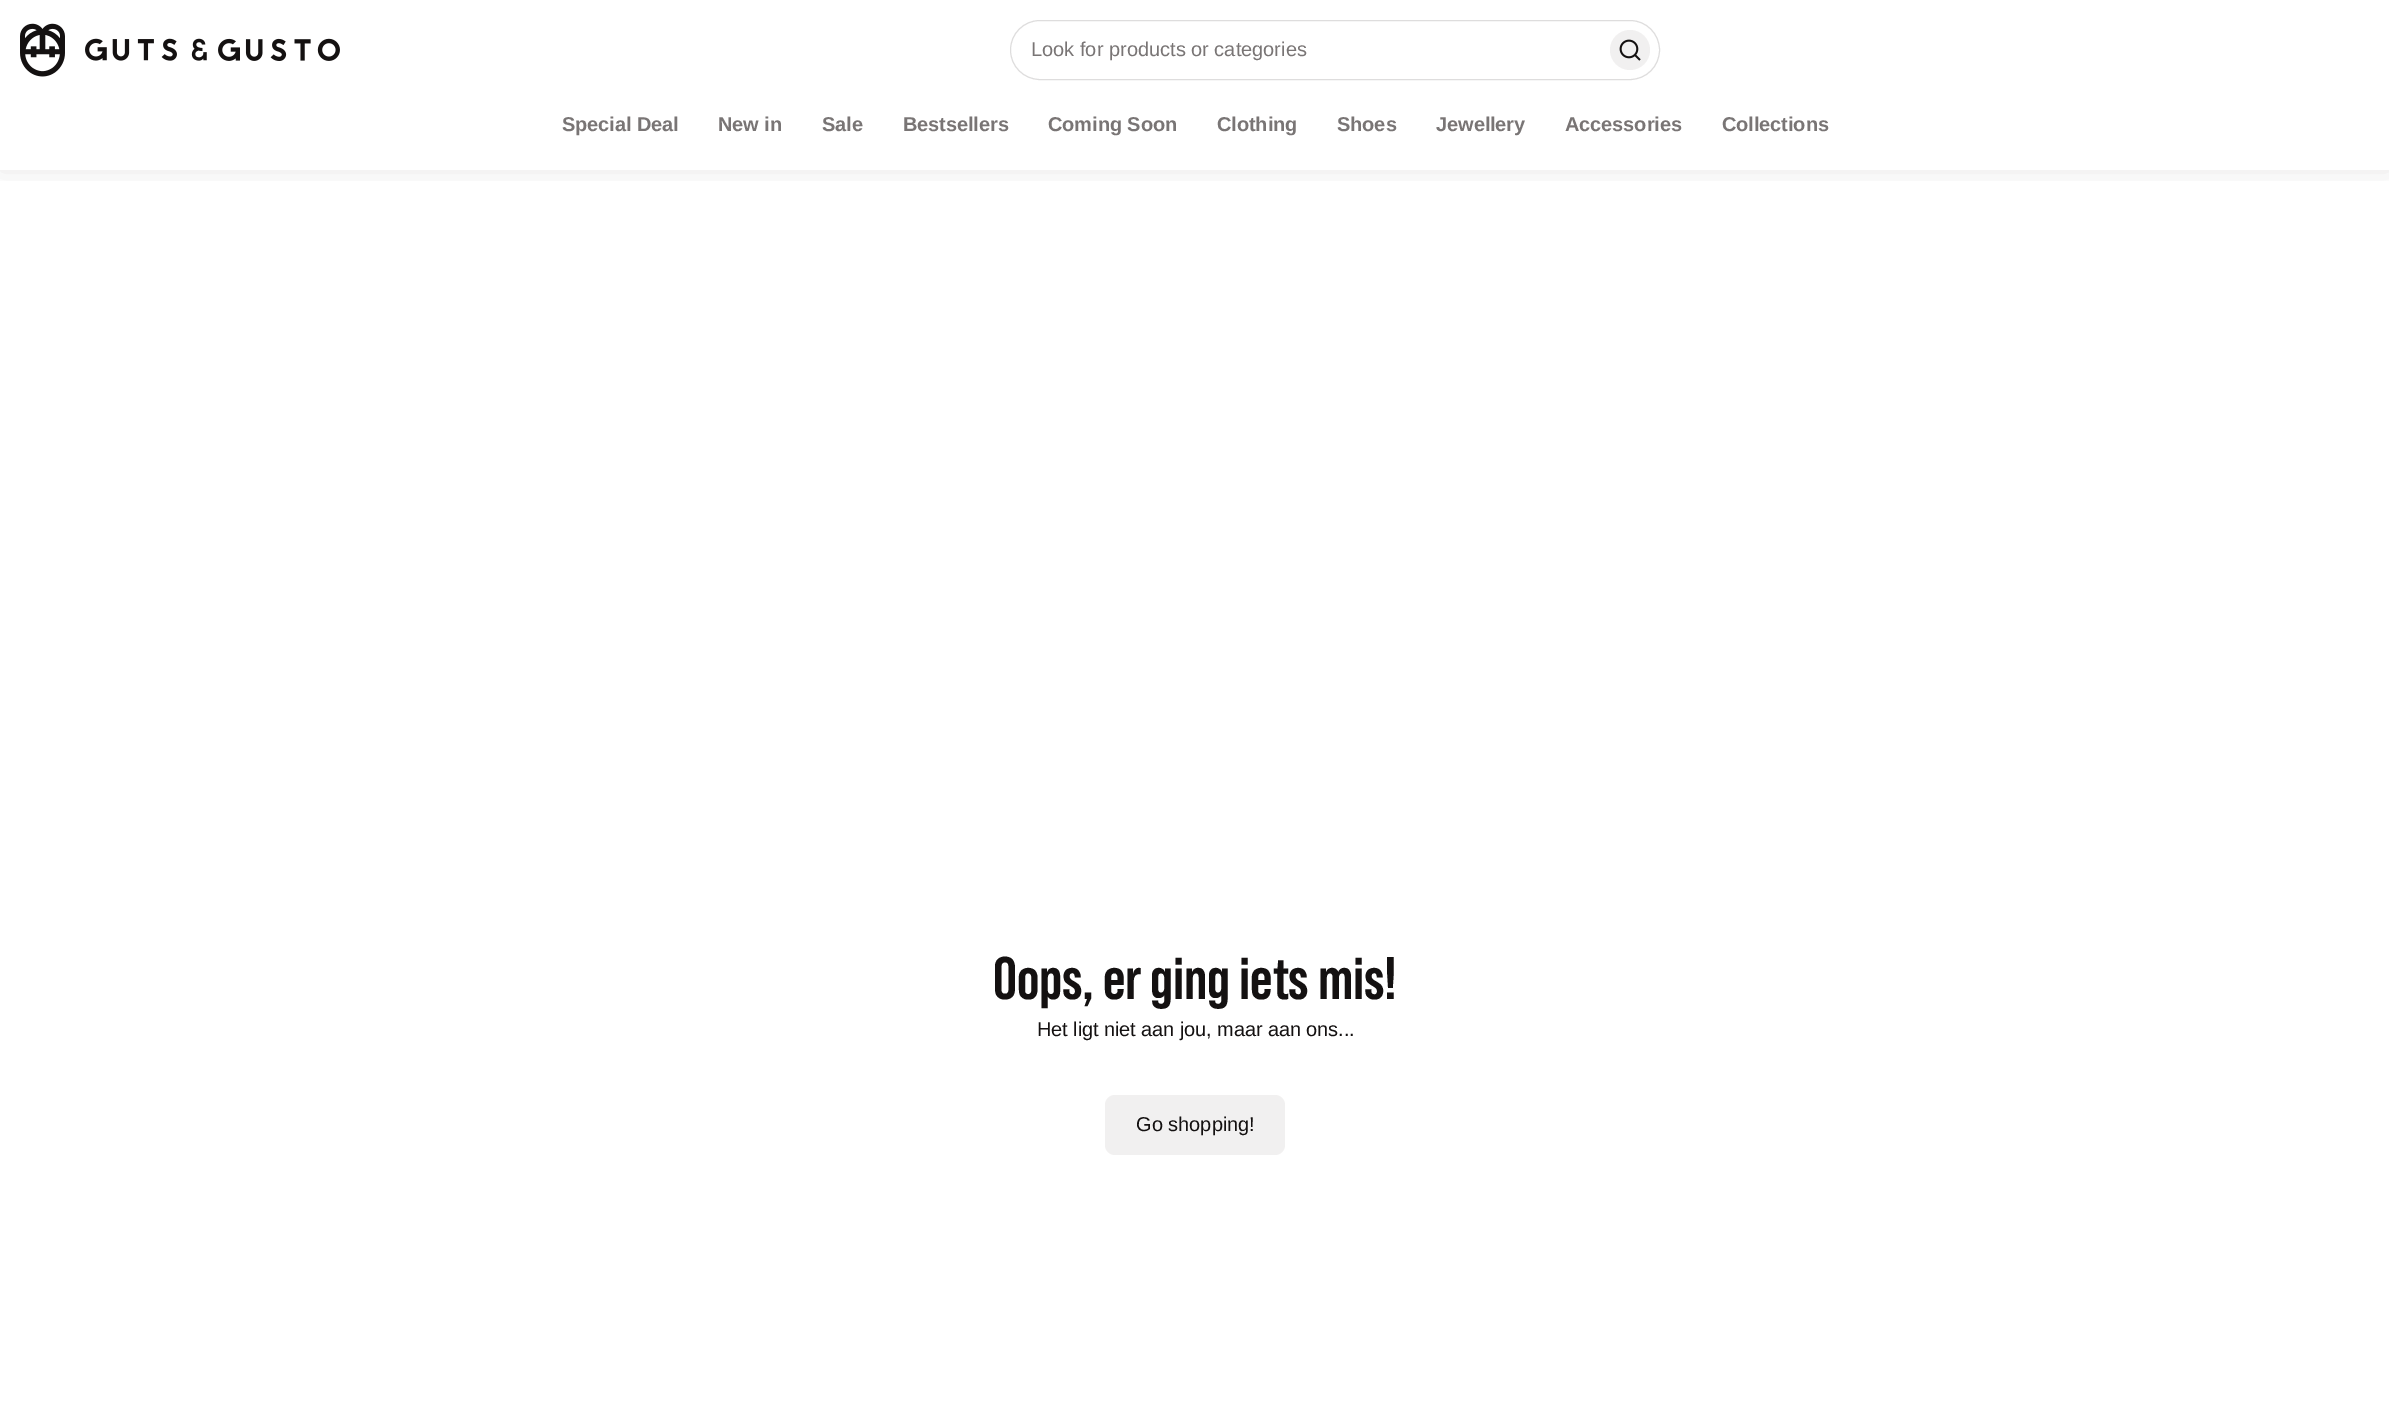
%!PS-Adobe-3.0
%%BoundingBox: 0 0 2389 1409
%%LanguageLevel: 3
%%Pages: 1
%%EndComments
%%BeginProlog
/m { moveto } bind def
/f { fill } bind def
/S { stroke } bind def
/q { gsave } bind def
/Q { grestore } bind def
/fn { [ exch dup neg 0 0 3 -1 roll 0 0 ] selectfont } def
/tx { moveto show } def
/bx { rectfill } def
/al { dup .setfillconstantalpha .setstrokeconstantalpha } def
/ci { newpath 0 360 arc closepath } def
/rr { 5 dict begin { /r /h /w /y /x } { exch def } forall
  x r add y moveto x w add y 2 copy h add r arct x w add y h add x 1 index r arct
  x y h add x y r arct x y 2 copy exch w add exch r arct closepath end } def
/sh { 12 dict begin { /a /b /q /h /w /y /x } { exch def } forall gsave /was 0 def
  9 -2 -9 { dup b mul 4 div /e exch def 1 sub .425 mul 2.718 exch exp 1 add a .99 .min exch div /now exch def
    1 1 now sub 1 was sub div sub al /was now def
    w h .min e 2 mul add 0 gt { x e sub y e sub w e 2 mul add h e 2 mul add
      q e add b .6 mul add w h .min 2 div e add .min 0 .max rr fill } if } for grestore end } def
/im { 5 dict begin { /h /w /y /x /name } { exch def } forall
  gsave x y translate w h scale
  w h 8 [w 0 0 h 0 0] name (r) file false 3 colorimage grestore end } def
%%EndProlog
%%BeginSetup
<< /PageSize [2389 1409] /PageUsesTransparency true >> setpagedevice
%%EndSetup
%%Page: 1 1
0 .pushpdf14devicefilter
0 1409 translate 1 -1 scale
4 setmiterlimit
1 setgray
0 0 2389 1409 bx
q
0 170 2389 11 rectclip
0.078 0.067 0.067 setrgbcolor
0 1 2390 170 0 12.5 0.09 sh
Q
(image0.raw) 20 23 45 54 im
(image1.raw) 85 38 255 23 im
0.871 0.867 0.867 setrgbcolor
1010.5 20.5 649 59 29.5 rr S
/LiberationSans-Regular 20 fn
0.475 0.459 0.459 setrgbcolor
(Look for products or categories) 1031 56 tx
0.945 0.941 0.941 setrgbcolor
1630 50 20 ci f
(image2.raw) 1619 39 22 22 im
/LiberationSans-Bold 20 fn
0.475 0.459 0.459 setrgbcolor
562 131 m -0.1 0 (Special Deal) ashow
718 131 m -0.1 0 (New in) ashow
822 131 m -0.1 0 (Sale) ashow
903 131 m -0.1 0 (Bestsellers) ashow
1048 131 m -0.1 0 (Coming Soon) ashow
1217 131 m -0.1 0 (Clothing) ashow
1337 131 m -0.1 0 (Shoes) ashow
1436 131 m -0.1 0 (Jewellery) ashow
1565 131 m -0.1 0 (Accessories) ashow
1722 131 m -0.1 0 (Collections) ashow
/BebasNeue-Bold 60 fn
0.078 0.067 0.067 setrgbcolor
993 999 m -0.3 0 (Oops, er ging iets mis!) ashow
/LiberationSans-Regular 20 fn
1037 1036 m -0.1 0 (Het ligt niet aan jou, maar aan ons...) ashow
0.945 0.941 0.941 setrgbcolor
1105 1095 180 60 10 rr f
0.078 0.067 0.067 setrgbcolor
(Go shopping!) 1136 1131 tx
.poppdf14devicefilter showpage
%%EOF
